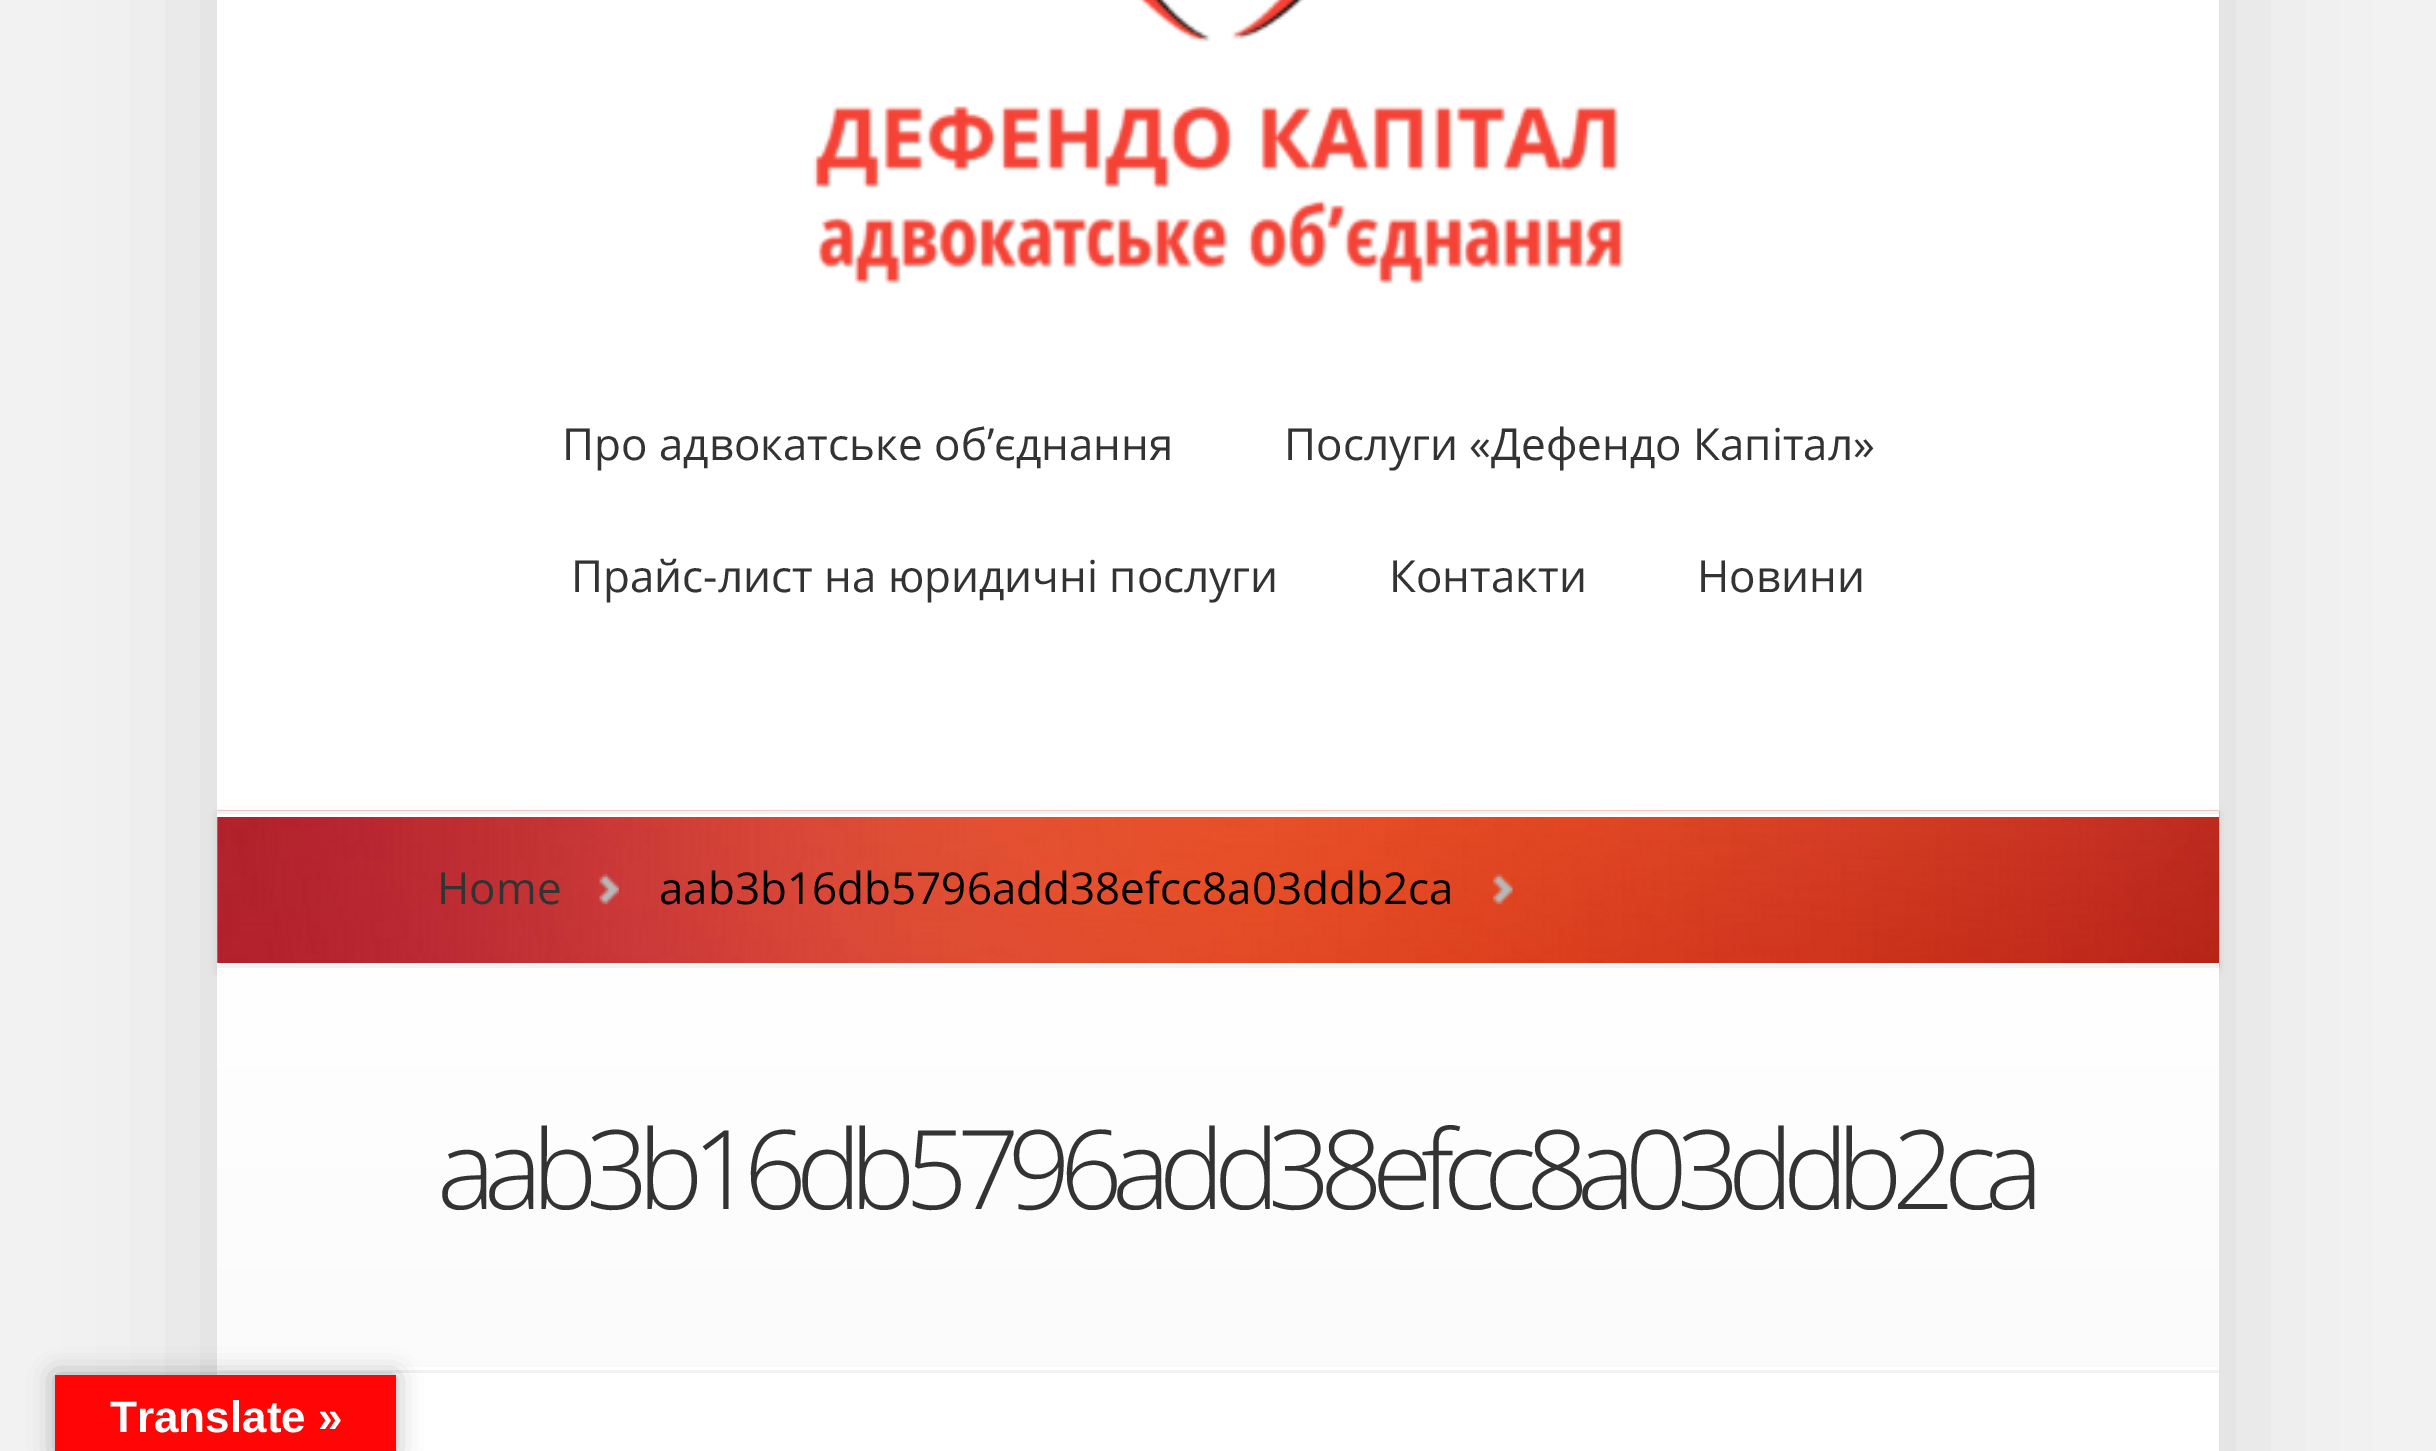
%!PS-Adobe-3.0
%%BoundingBox: 0 0 2436 1451
%%LanguageLevel: 3
%%Pages: 1
%%EndComments
%%BeginProlog
/m { moveto } bind def
/l { lineto } bind def
/h { closepath } bind def
/q { gsave } bind def
/Q { grestore } bind def
/fn { [ exch dup neg 0 0 3 -1 roll 0 0 ] selectfont } def
/tx { moveto show } def
/bx { rectfill } def
/al { dup .setfillconstantalpha .setstrokeconstantalpha } def
/rr { 5 dict begin { /r /h /w /y /x } { exch def } forall
  x r add y moveto x w add y 2 copy h add r arct x w add y h add x 1 index r arct
  x y h add x y r arct x y 2 copy exch w add exch r arct closepath end } def
/sh { 12 dict begin { /a /b /q /h /w /y /x } { exch def } forall gsave /was 0 def
  9 -2 -9 { dup b mul 4 div /e exch def 1 sub .425 mul 2.718 exch exp 1 add a .99 .min exch div /now exch def
    1 1 now sub 1 was sub div sub al /was now def
    w h .min e 2 mul add 0 gt { x e sub y e sub w e 2 mul add h e 2 mul add
      q e add b .6 mul add w h .min 2 div e add .min 0 .max rr fill } if } for grestore end } def
/im { 5 dict begin { /h /w /y /x /name } { exch def } forall
  gsave x y translate w h scale
  w h 8 [w 0 0 h 0 0] name (r) file false 3 colorimage grestore end } def
%%EndProlog
%%BeginSetup
<< /PageSize [2436 1451] /PageUsesTransparency true >> setpagedevice
%%EndSetup
%%Page: 1 1
0 .pushpdf14devicefilter
0 1451 translate 1 -1 scale
4 setmiterlimit
0.949 setgray
0 0 2436 1451 bx
0 setgray
217 -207 2002 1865 0 69 0.1 sh
1 setgray
217 0 2002 1451 bx
(image0.raw) 813 0 811 284 im
/OpenSans-Regular 44 fn
0.2 setgray
(Про адвокатське об’єднання) 562 460 tx
(Послуги «Дефендо Капітал») 1284 460 tx
(Прайс-лист на юридичні послуги) 571 592 tx
(Контакти) 1389 592 tx
(Новини) 1697 592 tx
0 setgray
217 814 2002 157 0 4 0.1 sh
(image1.raw) 217 810 2003 158 im
1 setgray
217 963 2002 2 bx
217 814 2002 3 bx
0.949 setgray
217 811 2002 3 bx
217 965 2002 3 bx
0.2 setgray
(Home) 437 904 tx
(image2.raw) 599 874 20 31 im
0 setgray
(aab3b16db5796add38efcc8a03ddb2ca) 659 904 tx
(image3.raw) 1493 874 20 31 im
q 217 968 m 2219 968 l 2219 1367 l 217 1367 l h clip newpath
<< /ShadingType 2 /ColorSpace /DeviceRGB /Coords [1218 968 1218 1370] /Extend [true true] /Function << /FunctionType 2 /Domain [0 1] /C0 [1 1 1] /C1 [0.984 0.984 0.984] /N 1 >> >> shfill Q
0.949 setgray
217 1370 2002 3 bx
/OpenSans-Light 110 fn
0.2 setgray
437 1209 m -11 0 (aab3b16db5796add38efcc8a03ddb2ca) ashow
0 setgray
55 1375 341 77 0 12.5 0.3 sh
1 0.02 0.02 setrgbcolor
55 1375 341 76 bx
/LiberationSans-Bold 44 fn
1 setgray
(Translate ») 110 1432 tx
.poppdf14devicefilter showpage
%%EOF
